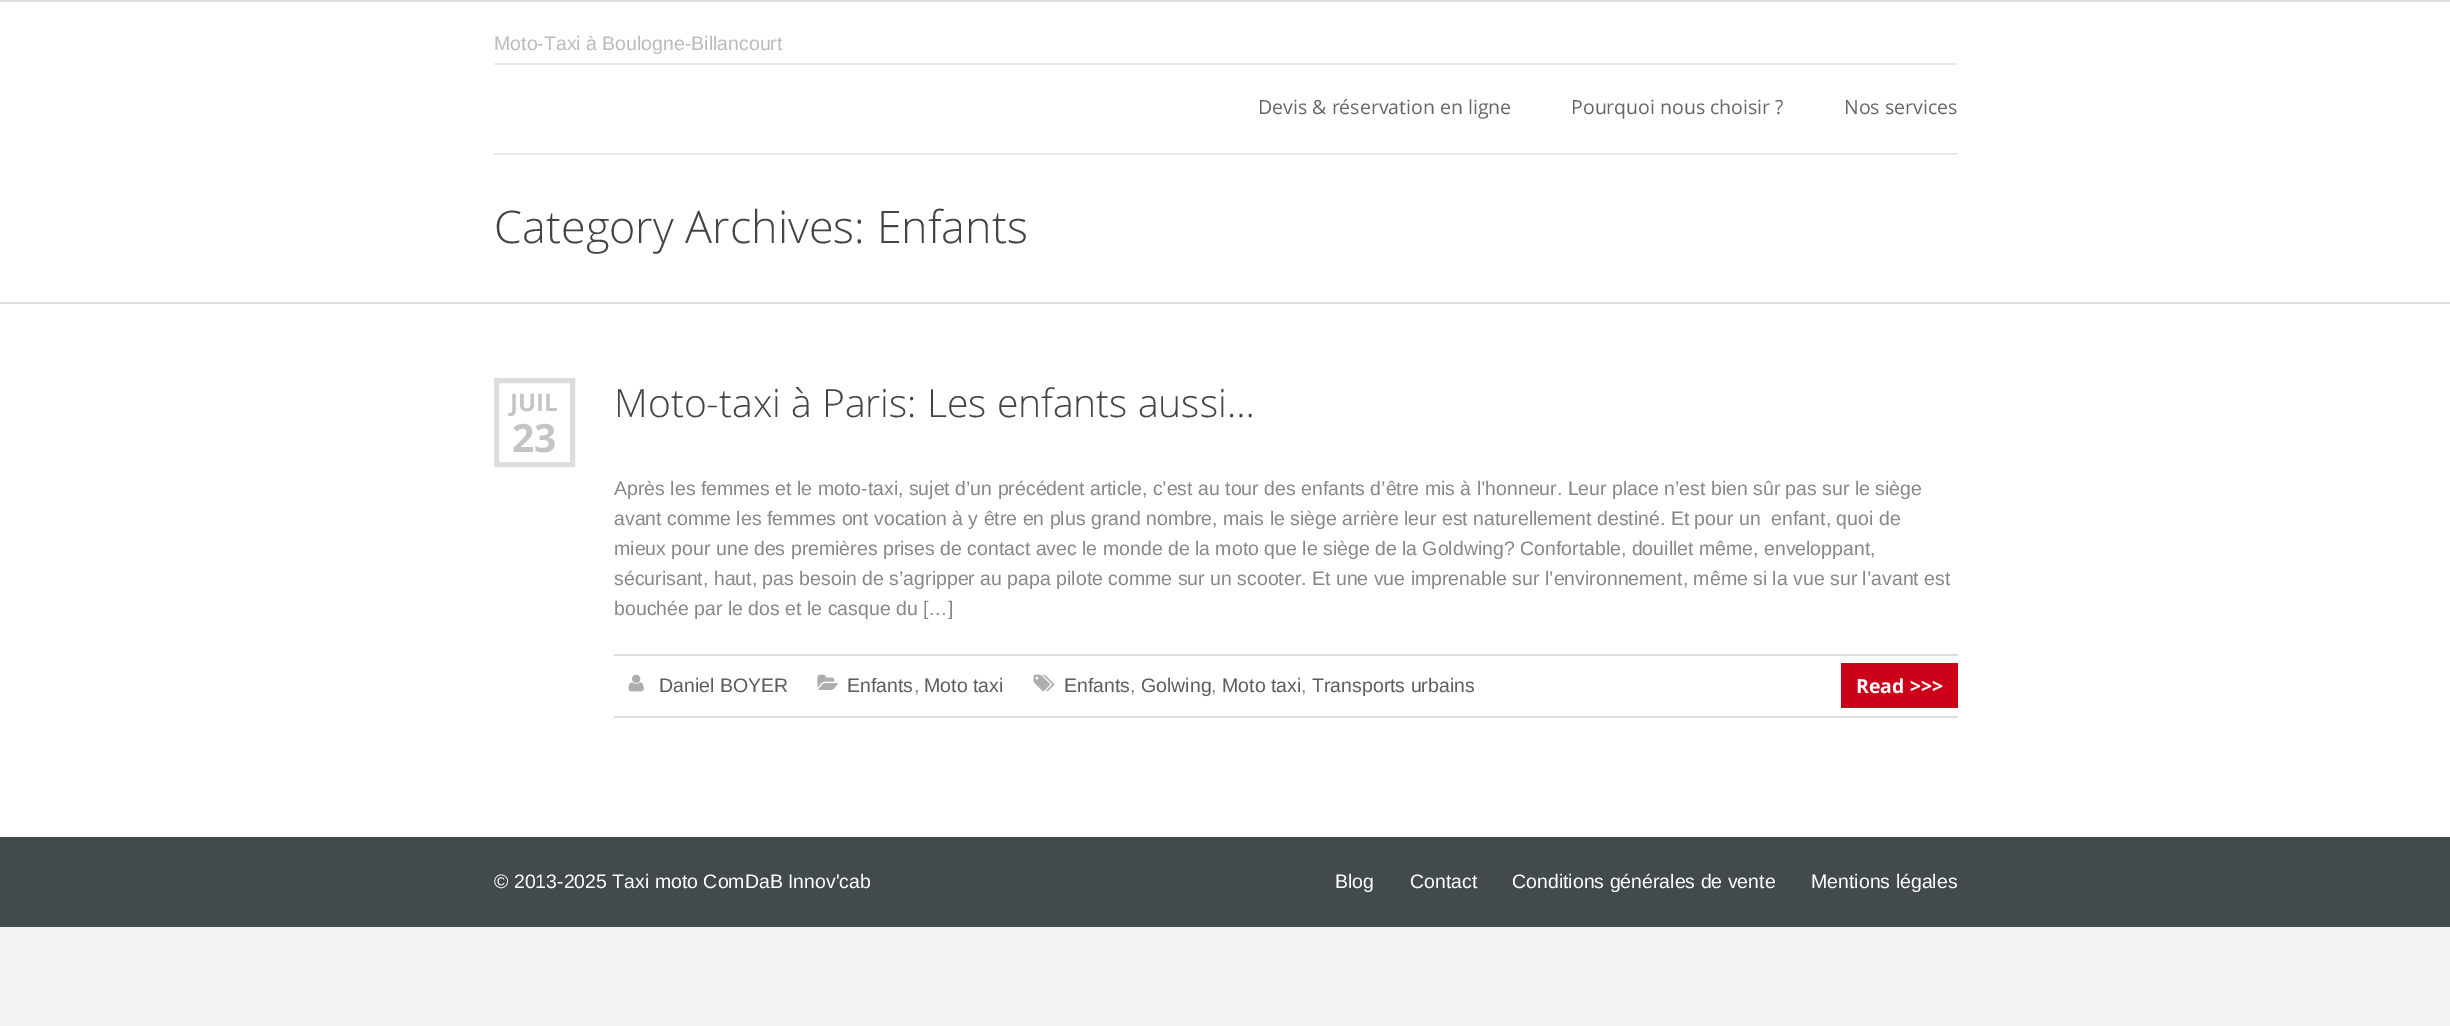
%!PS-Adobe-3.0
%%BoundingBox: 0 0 2450 1026
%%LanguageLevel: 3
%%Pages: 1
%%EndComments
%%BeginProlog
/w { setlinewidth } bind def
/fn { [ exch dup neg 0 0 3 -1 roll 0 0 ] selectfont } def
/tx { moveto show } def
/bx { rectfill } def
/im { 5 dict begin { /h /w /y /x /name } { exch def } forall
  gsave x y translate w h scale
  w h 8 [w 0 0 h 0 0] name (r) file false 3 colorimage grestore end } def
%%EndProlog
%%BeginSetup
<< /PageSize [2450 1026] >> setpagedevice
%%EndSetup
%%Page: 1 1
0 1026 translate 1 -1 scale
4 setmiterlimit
0.949 setgray
0 0 2450 1026 bx
1 setgray
0 2 2450 835 bx
0.867 setgray
0 0 2450 2 bx
0.918 setgray
494 63 1464 2 bx
/LiberationSans-Regular 19.5 fn
0.733 setgray
(Moto-Taxi à Boulogne-Billancourt) 494 50 tx
0.918 setgray
494 153 1464 2 bx
/OpenSans-Regular 19.5 fn
0.4 setgray
(Devis & réservation en ligne) 1258 114 tx
(Pourquoi nous choisir ?) 1571 114 tx
(Nos services) 1844 114 tx
0.867 setgray
0 302 2450 2 bx
/OpenSans-Light 45 fn
0.267 setgray
(Category Archives: Enfants) 494 243 tx
0.867 setgray
5 w
496.5 380.5 76 84 rectstroke
/OpenSans-Bold 24 fn
0.769 setgray
(JUIL) 510 411 tx
/OpenSans-Bold 39 fn
(23) 512 452 tx
/OpenSans-Light 39 fn
0.267 setgray
(Moto-taxi à Paris: Les enfants aussi…) 614 417 tx
/LiberationSans-Regular 19.5 fn
0.533 setgray
(Après les femmes et le moto-taxi, sujet d’un précédent article, c’est au tour des enfants d’être mis à l’honneur. Leur place n’est bien sûr pas sur le siège) 614 495 tx
(avant comme les femmes ont vocation à y être en plus grand nombre, mais le siège arrière leur est naturellement destiné. Et pour un  enfant, quoi de) 614 525 tx
(mieux pour une des premières prises de contact avec le monde de la moto que le siège de la Goldwing? Confortable, douillet même, enveloppant,) 614 555 tx
(sécurisant, haut, pas besoin de s’agripper au papa pilote comme sur un scooter. Et une vue imprenable sur l’environnement, même si la vue sur l’avant est) 614 585 tx
(bouchée par le dos et le casque du […]) 614 615 tx
0.867 setgray
614 654 1344 2 bx
614 716 1344 2 bx
(image0.raw) 628 674 16 18 im
0.369 setgray
(Daniel BOYER) 659 692 tx
(image1.raw) 817 674 21 16 im
(Enfants) 847 692 tx
0.533 setgray
(,) 914 692 tx
0.369 setgray
(Moto taxi) 924 692 tx
(image2.raw) 1033 674 22 18 im
(Enfants) 1064 692 tx
0.533 setgray
(,) 1130 692 tx
0.369 setgray
(Golwing) 1141 692 tx
0.533 setgray
(,) 1211 692 tx
0.369 setgray
(Moto taxi) 1222 692 tx
0.533 setgray
(,) 1301 692 tx
0.369 setgray
(Transports urbains) 1312 692 tx
0.804 0 0.102 setrgbcolor
1841 663 117 45 bx
/OpenSans-Bold 19.5 fn
1 setgray
(Read >>>) 1856 693 tx
0.263 0.29 0.298 setrgbcolor
0 837 2450 90 bx
/LiberationSans-Regular 19.5 fn
1 setgray
(© 2013-2025 Taxi moto ComDaB Innov'cab) 494 888 tx
(Blog) 1335 888 tx
(Contact) 1410 888 tx
(Conditions générales de vente) 1512 888 tx
(Mentions légales) 1811 888 tx
showpage
%%EOF
